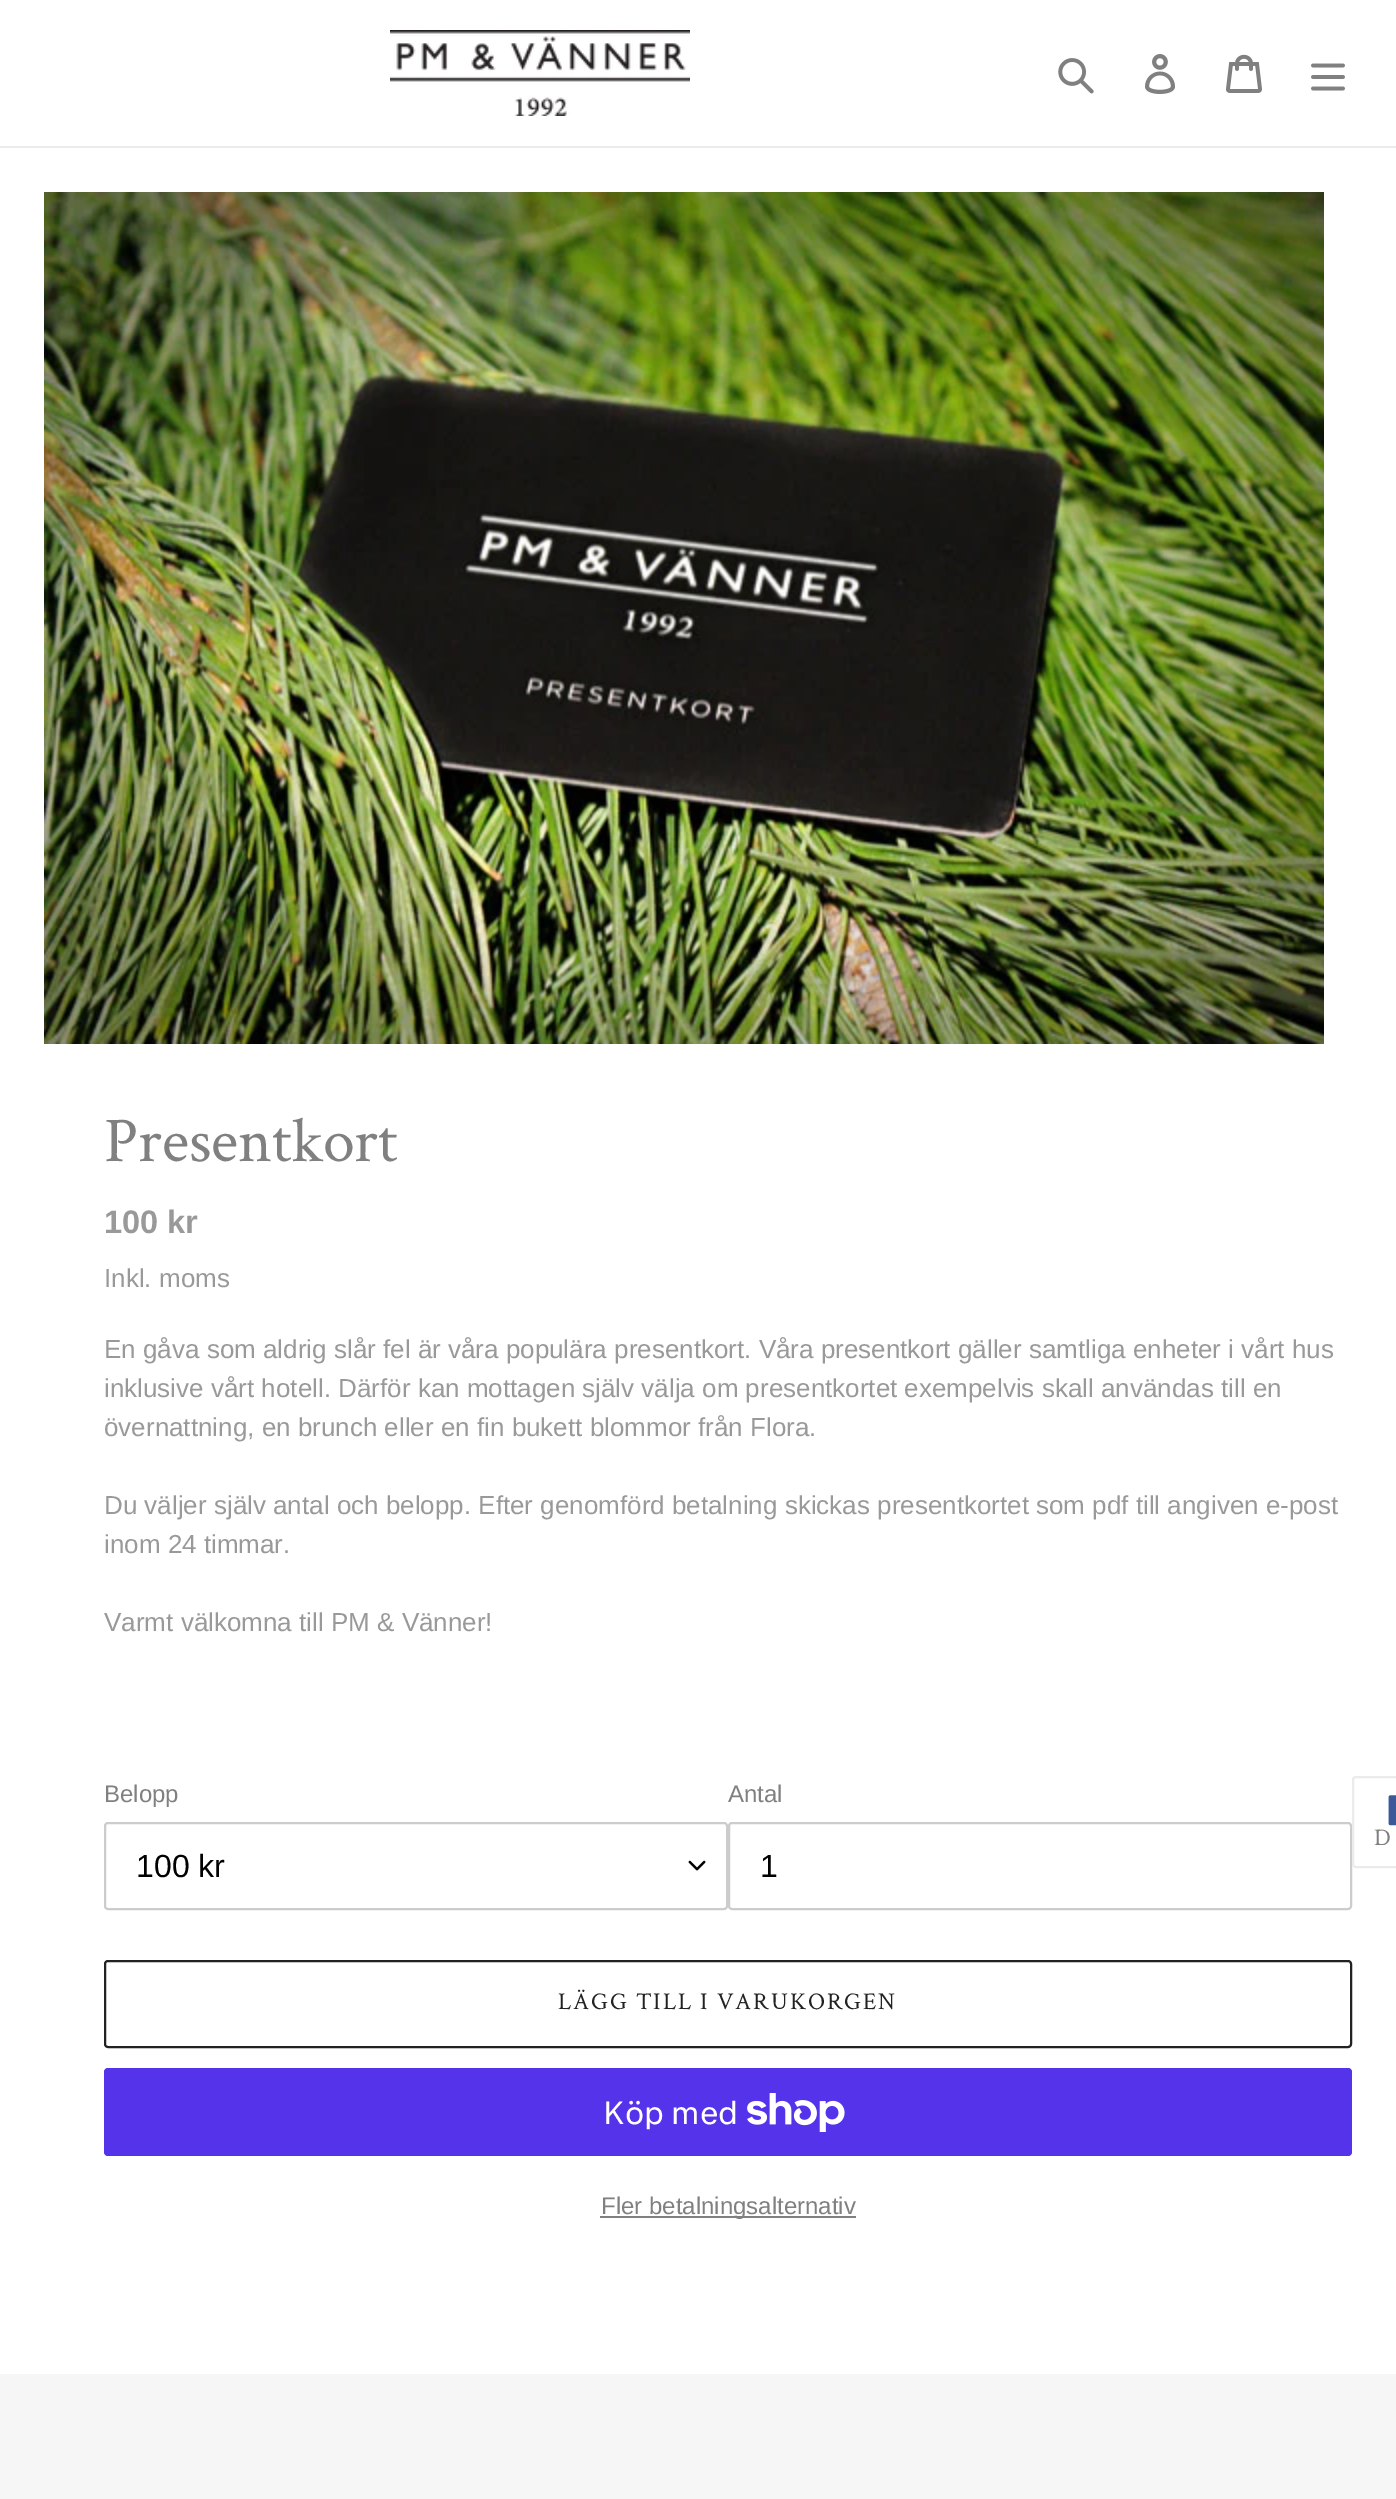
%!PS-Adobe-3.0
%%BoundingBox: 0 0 1396 2499
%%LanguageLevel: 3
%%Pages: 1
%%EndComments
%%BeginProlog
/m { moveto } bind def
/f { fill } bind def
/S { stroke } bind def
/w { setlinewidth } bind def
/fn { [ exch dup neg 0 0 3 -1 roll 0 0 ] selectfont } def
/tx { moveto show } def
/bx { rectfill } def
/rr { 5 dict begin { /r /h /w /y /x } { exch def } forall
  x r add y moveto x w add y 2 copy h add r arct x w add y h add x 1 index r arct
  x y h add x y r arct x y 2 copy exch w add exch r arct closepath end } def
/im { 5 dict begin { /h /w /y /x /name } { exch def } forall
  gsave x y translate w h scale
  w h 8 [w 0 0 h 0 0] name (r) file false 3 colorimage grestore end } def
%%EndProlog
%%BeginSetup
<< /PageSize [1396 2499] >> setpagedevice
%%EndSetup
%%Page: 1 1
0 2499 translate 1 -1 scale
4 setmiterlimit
1 setgray
0 0 1396 2499 bx
0.922 setgray
0 146 1396 2 bx
(image0.raw) 390 30 300 86 im
(image1.raw) 1058 58 36 36 im
(image2.raw) 1145 54 30 40 im
(image3.raw) 1226 54 36 39 im
(image4.raw) 1311 63 34 28 im
(image5.raw) 44 192 1280 852 im
/CrimsonText-Regular 64 fn
0.502 setgray
(Presentkort) 104 1161 tx
/Arimo-Bold 32.5 fn
0.6 setgray
(100 kr) 104 1233 tx
/Arimo-Regular 26 fn
(Inkl. moms) 104 1287 tx
(En gåva som aldrig slår fel är våra populära presentkort. Våra presentkort gäller samtliga enheter i vårt hus) 104 1358 tx
(inklusive vårt hotell. Därför kan mottagen själv välja om presentkortet exempelvis skall användas till en) 104 1397 tx
(övernattning, en brunch eller en fin bukett blommor från Flora.) 104 1436 tx
(Du väljer själv antal och belopp. Efter genomförd betalning skickas presentkortet som pdf till angiven e-post) 104 1514 tx
(inom 24 timmar.) 104 1553 tx
(Varmt välkomna till PM & Vänner!) 104 1631 tx
/Arimo-Regular 24 fn
0.502 setgray
(Belopp) 104 1802 tx
(image6.raw) 688 1860 18 11 im
0.8 setgray
2 w
105 1823 622 86 3 rr S
/Arimo-Regular 32 fn
0 setgray
(100 kr) 136 1877 tx
/Arimo-Regular 24 fn
0.502 setgray
(Antal) 728 1802 tx
0.8 setgray
729 1823 622 86 3 rr S
/Arimo-Regular 32 fn
0 setgray
(1) 760 1877 tx
0.133 setgray
105 1961 1246 86 3 rr S
/CrimsonText-Regular 24 fn
558 2009 m 1.9 0 (LÄGG TILL I VARUKORGEN) ashow
0.329 0.2 0.922 setrgbcolor
104 2068 1248 88 4 rr f
/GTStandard-Regular 32 fn
1 setgray
(Köp med) 603 2124 tx
(image7.raw) 747 2093 98 39 im
0.502 setgray
600 2216 256 2 bx
/Arimo-Regular 24 fn
(Fler betalningsalternativ) 601 2214 tx
0.922 setgray
1353 1777 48 90 3 rr S
(image8.raw) 1388 1795 8 31 im
/CrimsonText-Regular 24 fn
0.502 setgray
1374 1845 m 1.9 0 (D) ashow
0.965 setgray
0 2374 1396 125 bx
showpage
%%EOF
